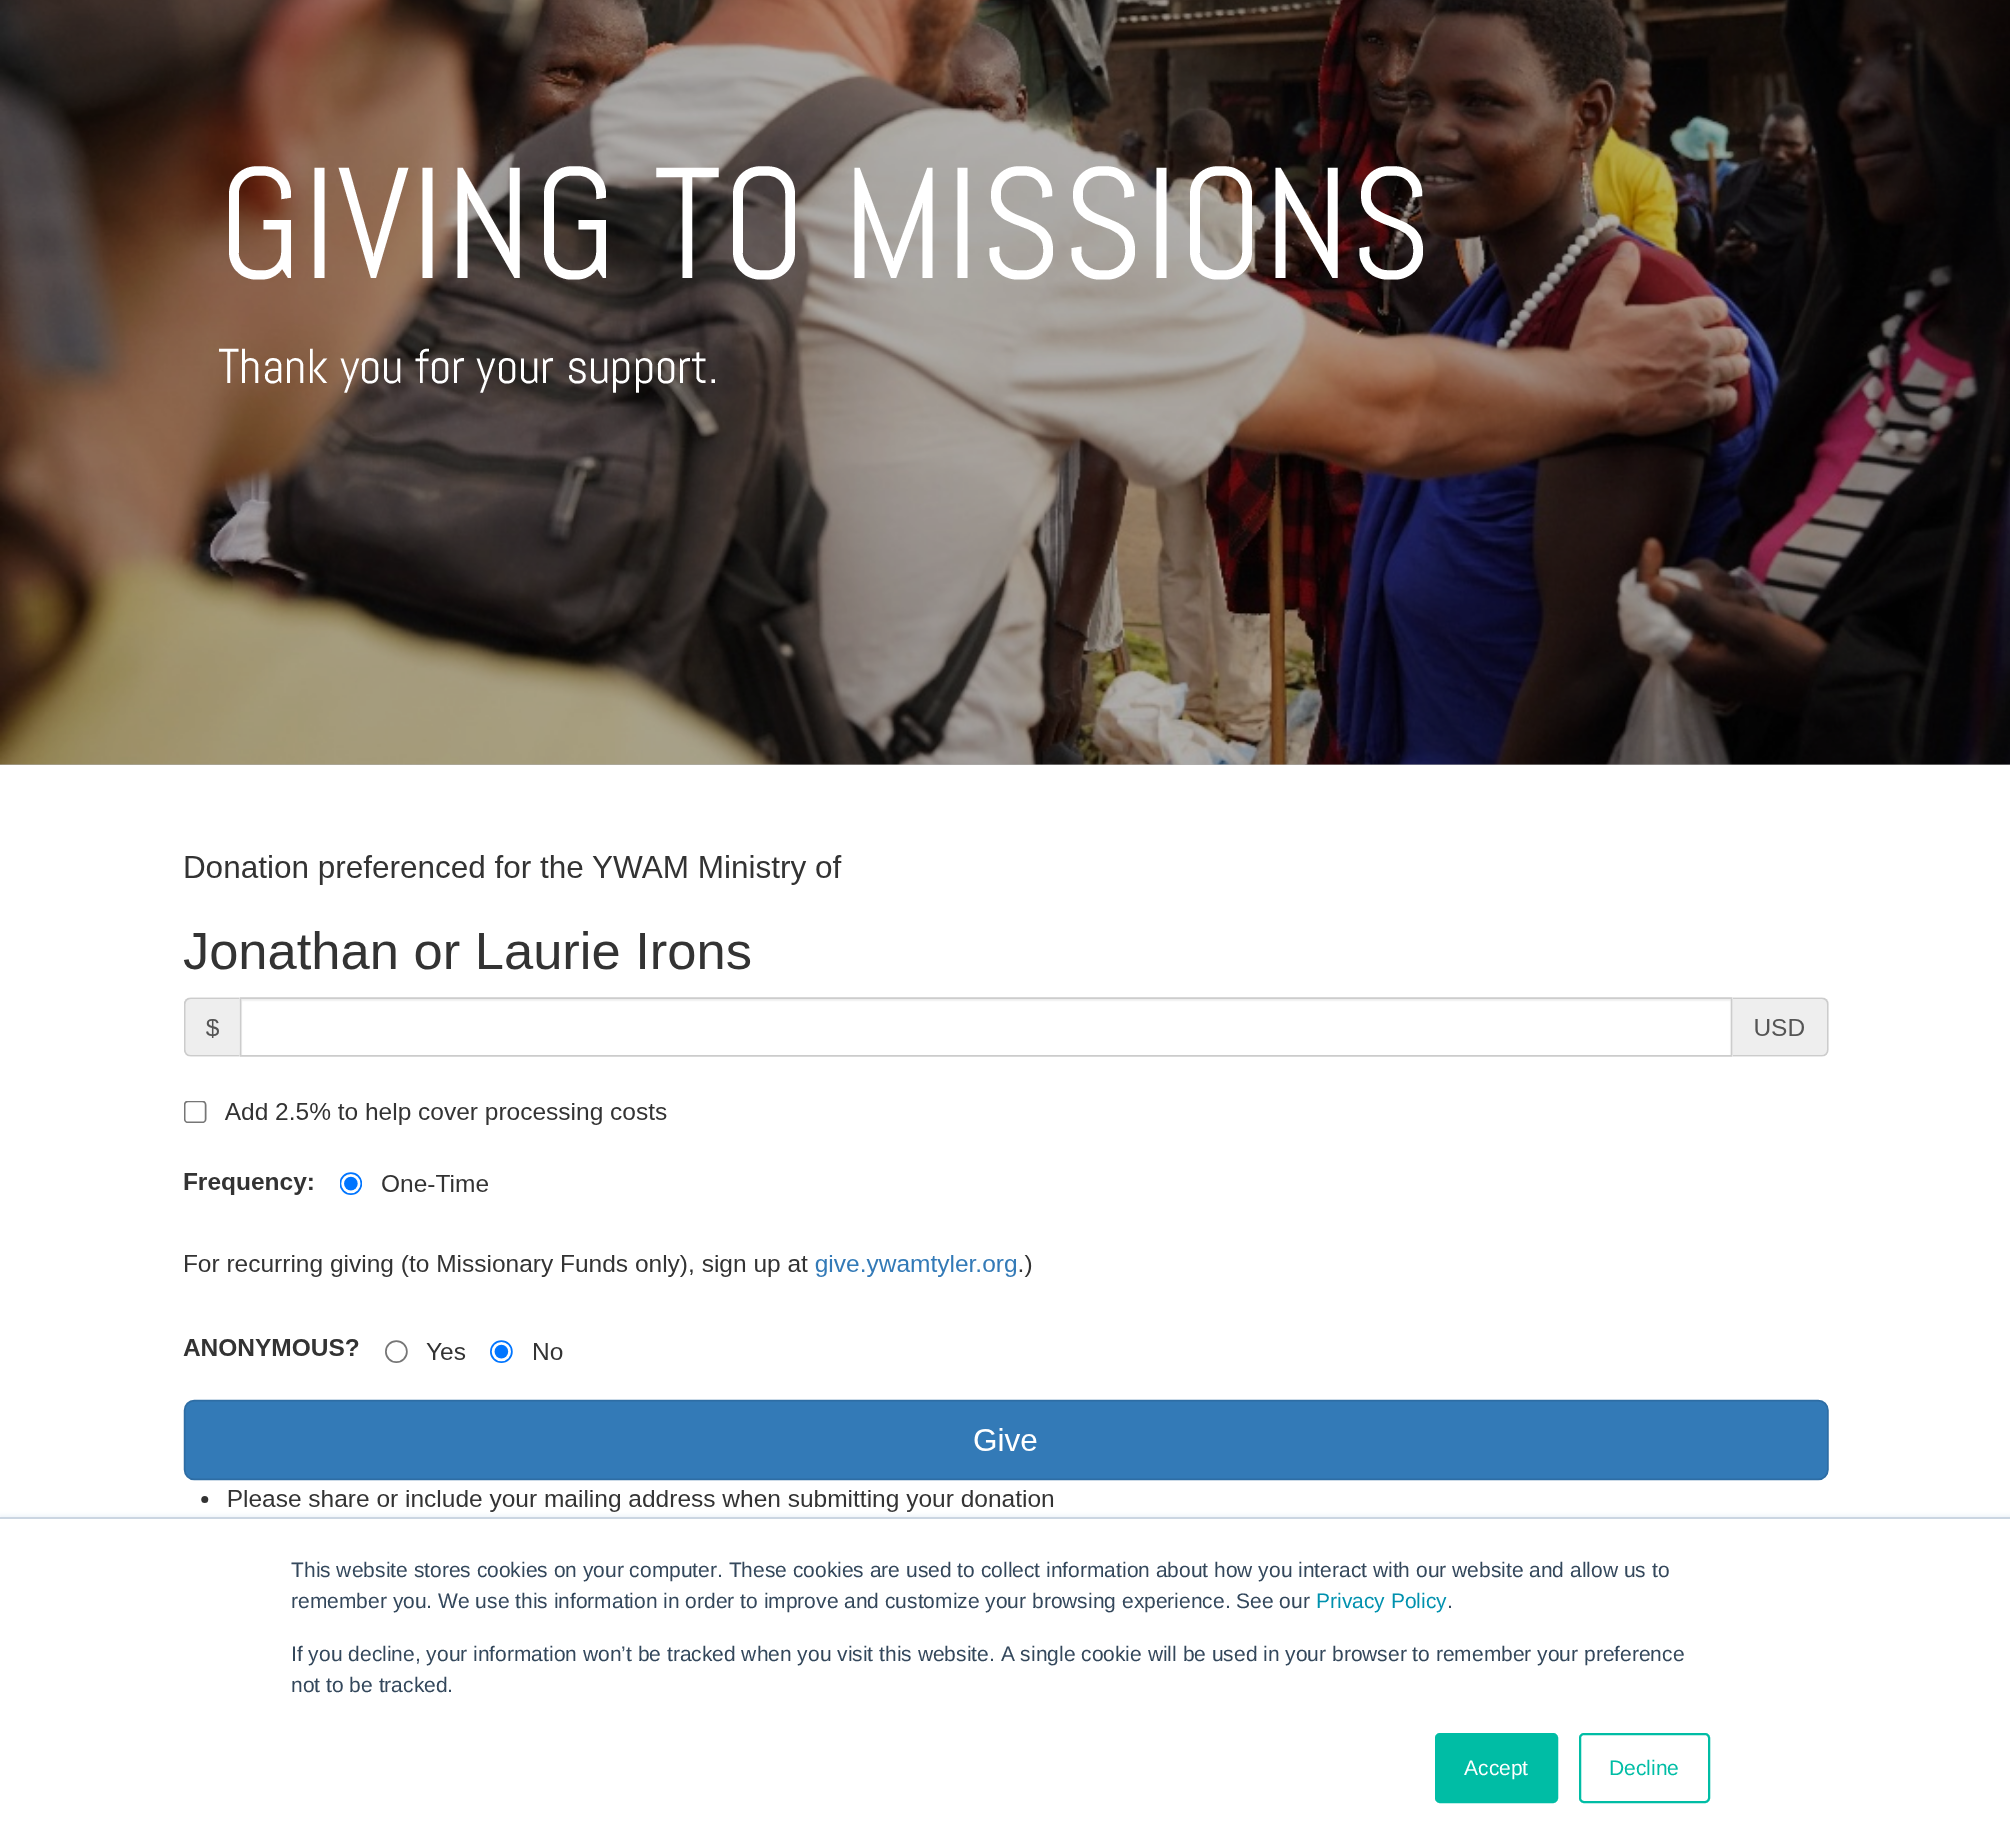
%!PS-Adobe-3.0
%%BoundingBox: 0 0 2010 1847
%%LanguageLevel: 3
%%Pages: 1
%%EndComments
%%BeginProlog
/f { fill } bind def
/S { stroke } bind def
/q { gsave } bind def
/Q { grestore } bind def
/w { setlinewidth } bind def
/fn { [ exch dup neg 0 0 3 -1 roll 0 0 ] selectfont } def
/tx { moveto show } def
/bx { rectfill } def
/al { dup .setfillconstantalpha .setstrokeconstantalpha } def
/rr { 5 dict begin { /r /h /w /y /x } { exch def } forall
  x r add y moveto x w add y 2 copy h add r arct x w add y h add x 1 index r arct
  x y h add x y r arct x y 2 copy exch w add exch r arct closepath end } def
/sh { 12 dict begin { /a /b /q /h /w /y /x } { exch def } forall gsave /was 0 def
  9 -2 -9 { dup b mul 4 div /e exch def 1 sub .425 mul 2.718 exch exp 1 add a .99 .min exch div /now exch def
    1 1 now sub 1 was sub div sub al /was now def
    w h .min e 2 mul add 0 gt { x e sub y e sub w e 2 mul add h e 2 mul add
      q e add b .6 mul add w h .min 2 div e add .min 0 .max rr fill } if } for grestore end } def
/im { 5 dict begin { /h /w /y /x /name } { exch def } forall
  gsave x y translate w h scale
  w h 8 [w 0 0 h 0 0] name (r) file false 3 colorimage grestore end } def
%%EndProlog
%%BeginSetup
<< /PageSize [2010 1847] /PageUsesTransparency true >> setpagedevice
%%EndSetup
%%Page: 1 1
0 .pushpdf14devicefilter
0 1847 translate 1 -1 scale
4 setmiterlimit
1 setgray
0 0 2010 1847 bx
0.702 setgray
0 764 2010 1 bx
(image0.raw) 0 0 2010 765 im
/Abel-Regular 157.5 fn
1 setgray
(GIVING TO MISSIONS) 218 278 tx
/Abel-Regular 49 fn
(Thank you for your support.) 218 383 tx
(image1.raw) 183 855 1646 662 im
0.918 0.941 0.965 setrgbcolor
0 1516 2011 330 0 2.5 1 sh
1 setgray
0 1519 2010 328 bx
0.796 0.839 0.886 setrgbcolor
0 1517 2010 2 bx
/LiberationSans-Regular 21 fn
0.2 0.278 0.357 setrgbcolor
(This website stores cookies on your computer. These cookies are used to collect information about how you interact with our website and allow us to) 291 1577 tx
(remember you. We use this information in order to improve and customize your browsing experience. See our) 291 1608 tx
0 0.569 0.682 setrgbcolor
(Privacy Policy) 1316 1608 tx
0.2 0.278 0.357 setrgbcolor
(.) 1447 1608 tx
(If you decline, your information won’t be tracked when you visit this website. A single cookie will be used in your browser to remember your preference) 291 1661 tx
(not to be tracked.) 291 1692 tx
0 0.741 0.647 setrgbcolor
1436 1734 121 68 4 rr q f Q
2 w
S
1 setgray
(Accept) 1464 1775 tx
0 0.741 0.647 setrgbcolor
1580 1734 129 68 4 rr S
(Decline) 1609 1775 tx
.poppdf14devicefilter showpage
%%EOF
